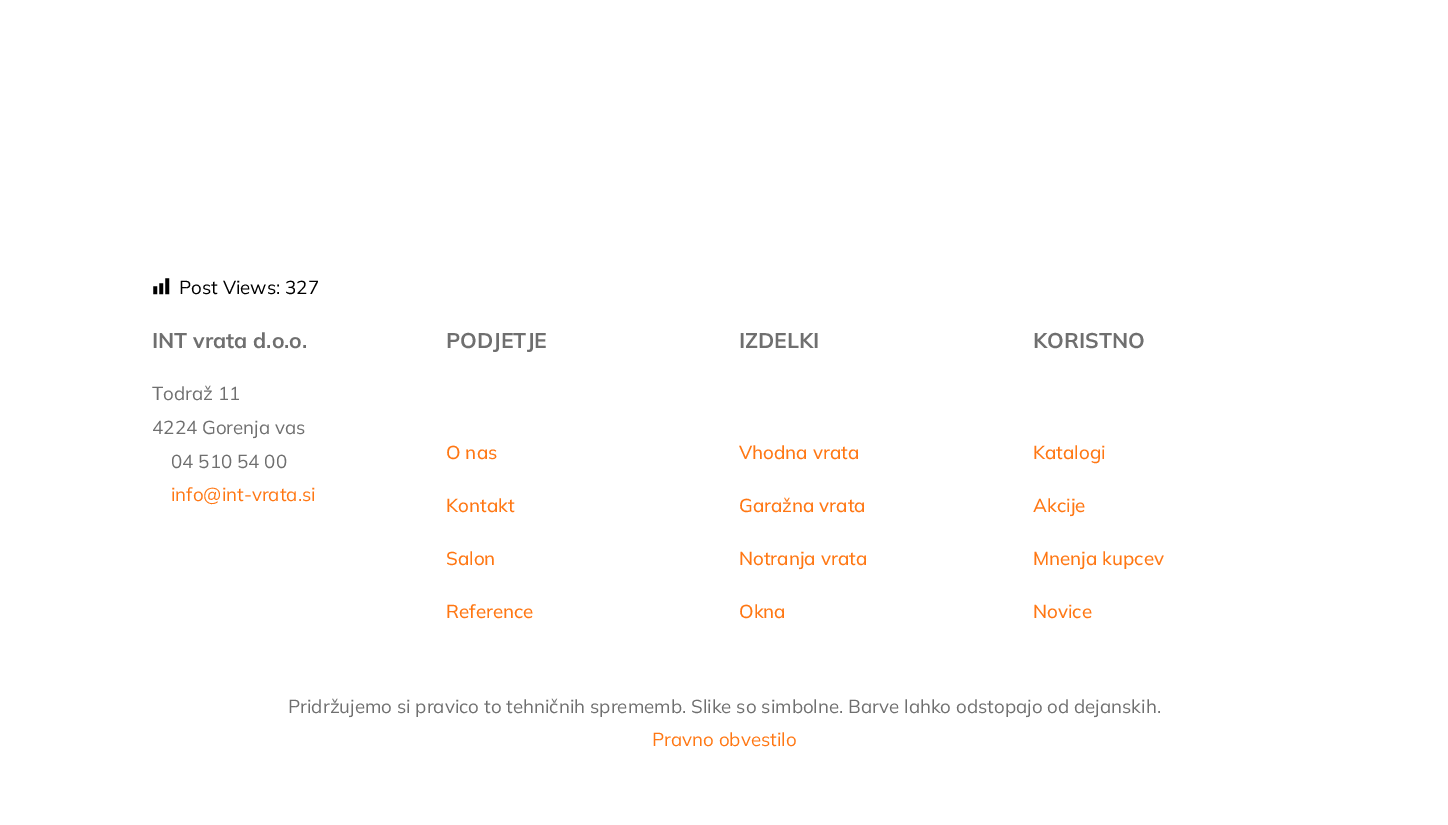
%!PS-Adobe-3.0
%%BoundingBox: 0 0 1448 825
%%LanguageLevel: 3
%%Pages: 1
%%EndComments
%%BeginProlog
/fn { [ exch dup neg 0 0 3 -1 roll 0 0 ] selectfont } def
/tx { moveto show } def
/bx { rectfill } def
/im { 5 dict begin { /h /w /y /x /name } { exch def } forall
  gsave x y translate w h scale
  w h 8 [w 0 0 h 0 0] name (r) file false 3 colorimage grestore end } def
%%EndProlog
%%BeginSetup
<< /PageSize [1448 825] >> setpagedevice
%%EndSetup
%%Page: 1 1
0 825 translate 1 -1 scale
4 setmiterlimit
1 setgray
0 0 1448 825 bx
(image0.raw) 153 278 17 17 im
/Mulish-Regular 18.75 fn
0 setgray
(Post Views: 327) 179 294 tx
/Mulish-Bold 21.25 fn
0.435 setgray
(INT vrata d.o.o.) 152 348 tx
/Mulish-Regular 18.75 fn
(Todraž 11) 152 400 tx
(4224 Gorenja vas) 152 434 tx
(04 510 54 00) 171 468 tx
1 0.467 0.075 setrgbcolor
(info@int-vrata.si) 171 501 tx
/Mulish-Bold 21.25 fn
0.435 setgray
(PODJETJE) 446 348 tx
/Mulish-Medium 18.75 fn
1 0.467 0.075 setrgbcolor
(O nas) 446 459 tx
(Kontakt) 446 512 tx
(Salon) 446 565 tx
(Reference) 446 618 tx
/Mulish-Bold 21.25 fn
0.435 setgray
(IZDELKI) 739 348 tx
/Mulish-Medium 18.75 fn
1 0.467 0.075 setrgbcolor
(Vhodna vrata) 739 459 tx
(Garažna vrata) 739 512 tx
(Notranja vrata) 739 565 tx
(Okna) 739 618 tx
/Mulish-Bold 21.25 fn
0.435 setgray
(KORISTNO) 1033 348 tx
/Mulish-Medium 18.75 fn
1 0.467 0.075 setrgbcolor
(Katalogi) 1033 459 tx
(Akcije) 1033 512 tx
(Mnenja kupcev) 1033 565 tx
(Novice) 1033 618 tx
/Mulish-Regular 18.75 fn
0.435 setgray
(Pridržujemo si pravico to tehničnih sprememb. Slike so simbolne. Barve lahko odstopajo od dejanskih.) 288 713 tx
1 0.467 0.075 setrgbcolor
(Pravno obvestilo) 652 746 tx
showpage
%%EOF
